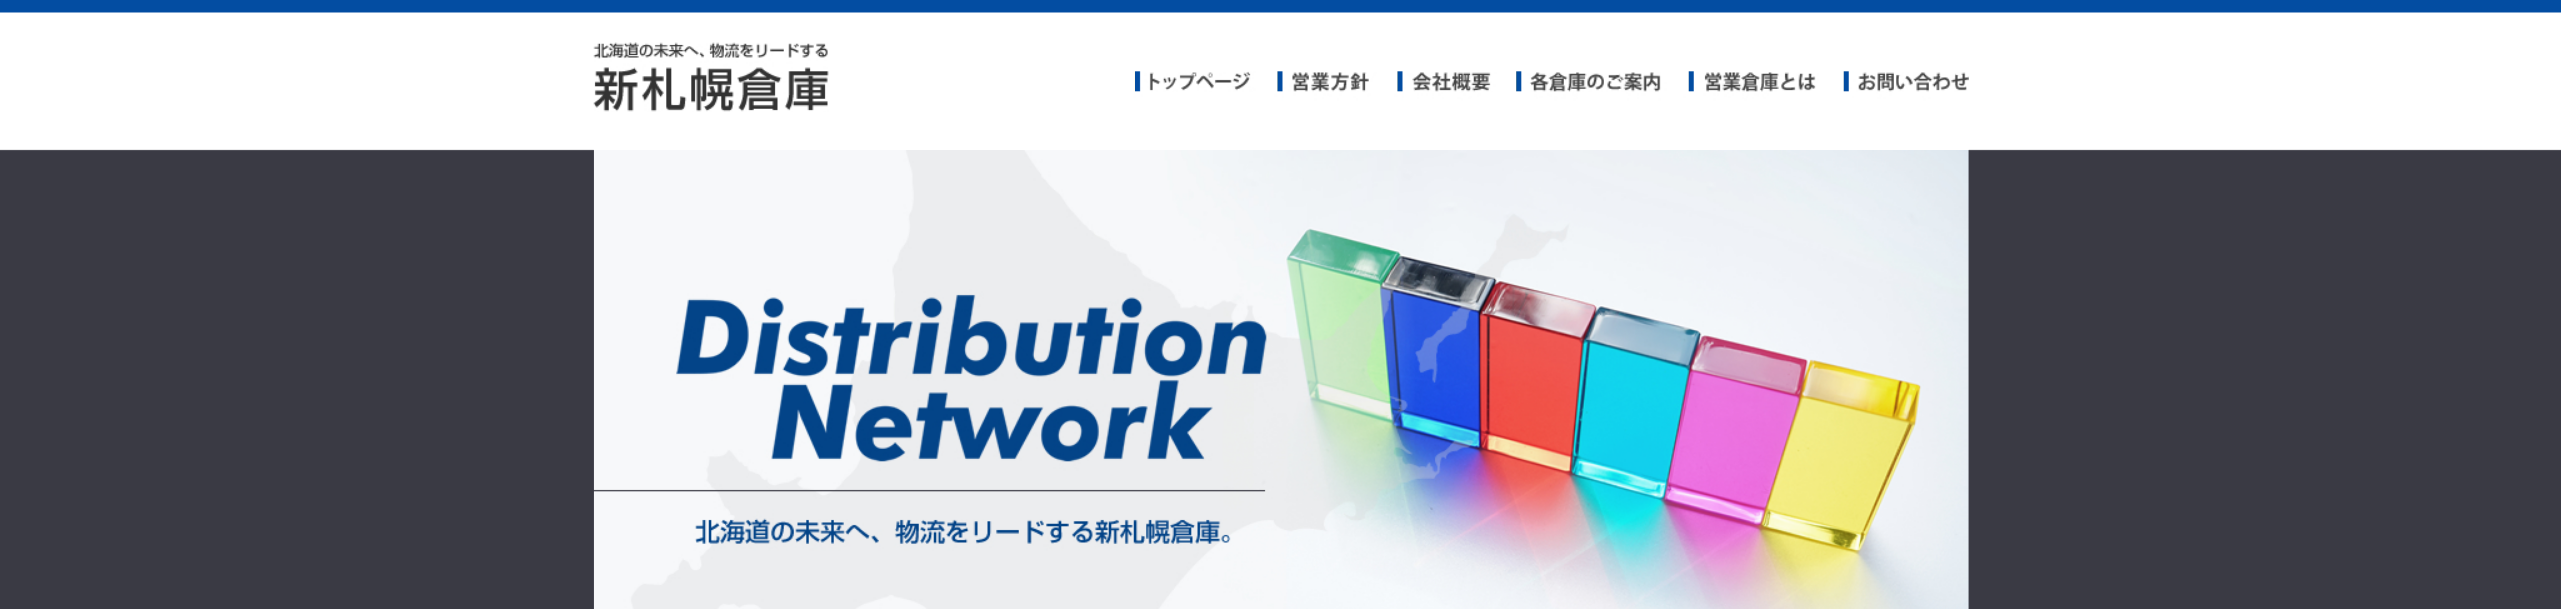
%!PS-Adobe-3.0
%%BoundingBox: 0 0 2561 609
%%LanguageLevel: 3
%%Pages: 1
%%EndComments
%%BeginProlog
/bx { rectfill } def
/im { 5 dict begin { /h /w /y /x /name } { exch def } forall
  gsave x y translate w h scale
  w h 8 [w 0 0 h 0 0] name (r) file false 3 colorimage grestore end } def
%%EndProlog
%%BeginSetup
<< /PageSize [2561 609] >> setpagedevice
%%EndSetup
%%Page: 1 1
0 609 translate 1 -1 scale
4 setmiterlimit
1 setgray
0 0 2561 609 bx
(image0.raw) 0 0 2561 609 im
(image1.raw) 593 71 1376 79 im
(image2.raw) 593 42 236 70 im
(image3.raw) 1135 71 143 21 im
(image4.raw) 1277 71 121 21 im
(image5.raw) 1397 71 120 21 im
(image6.raw) 1516 71 173 21 im
(image7.raw) 1688 71 156 21 im
(image8.raw) 1843 71 126 21 im
(image9.raw) 593 150 1376 459 im
showpage
%%EOF
